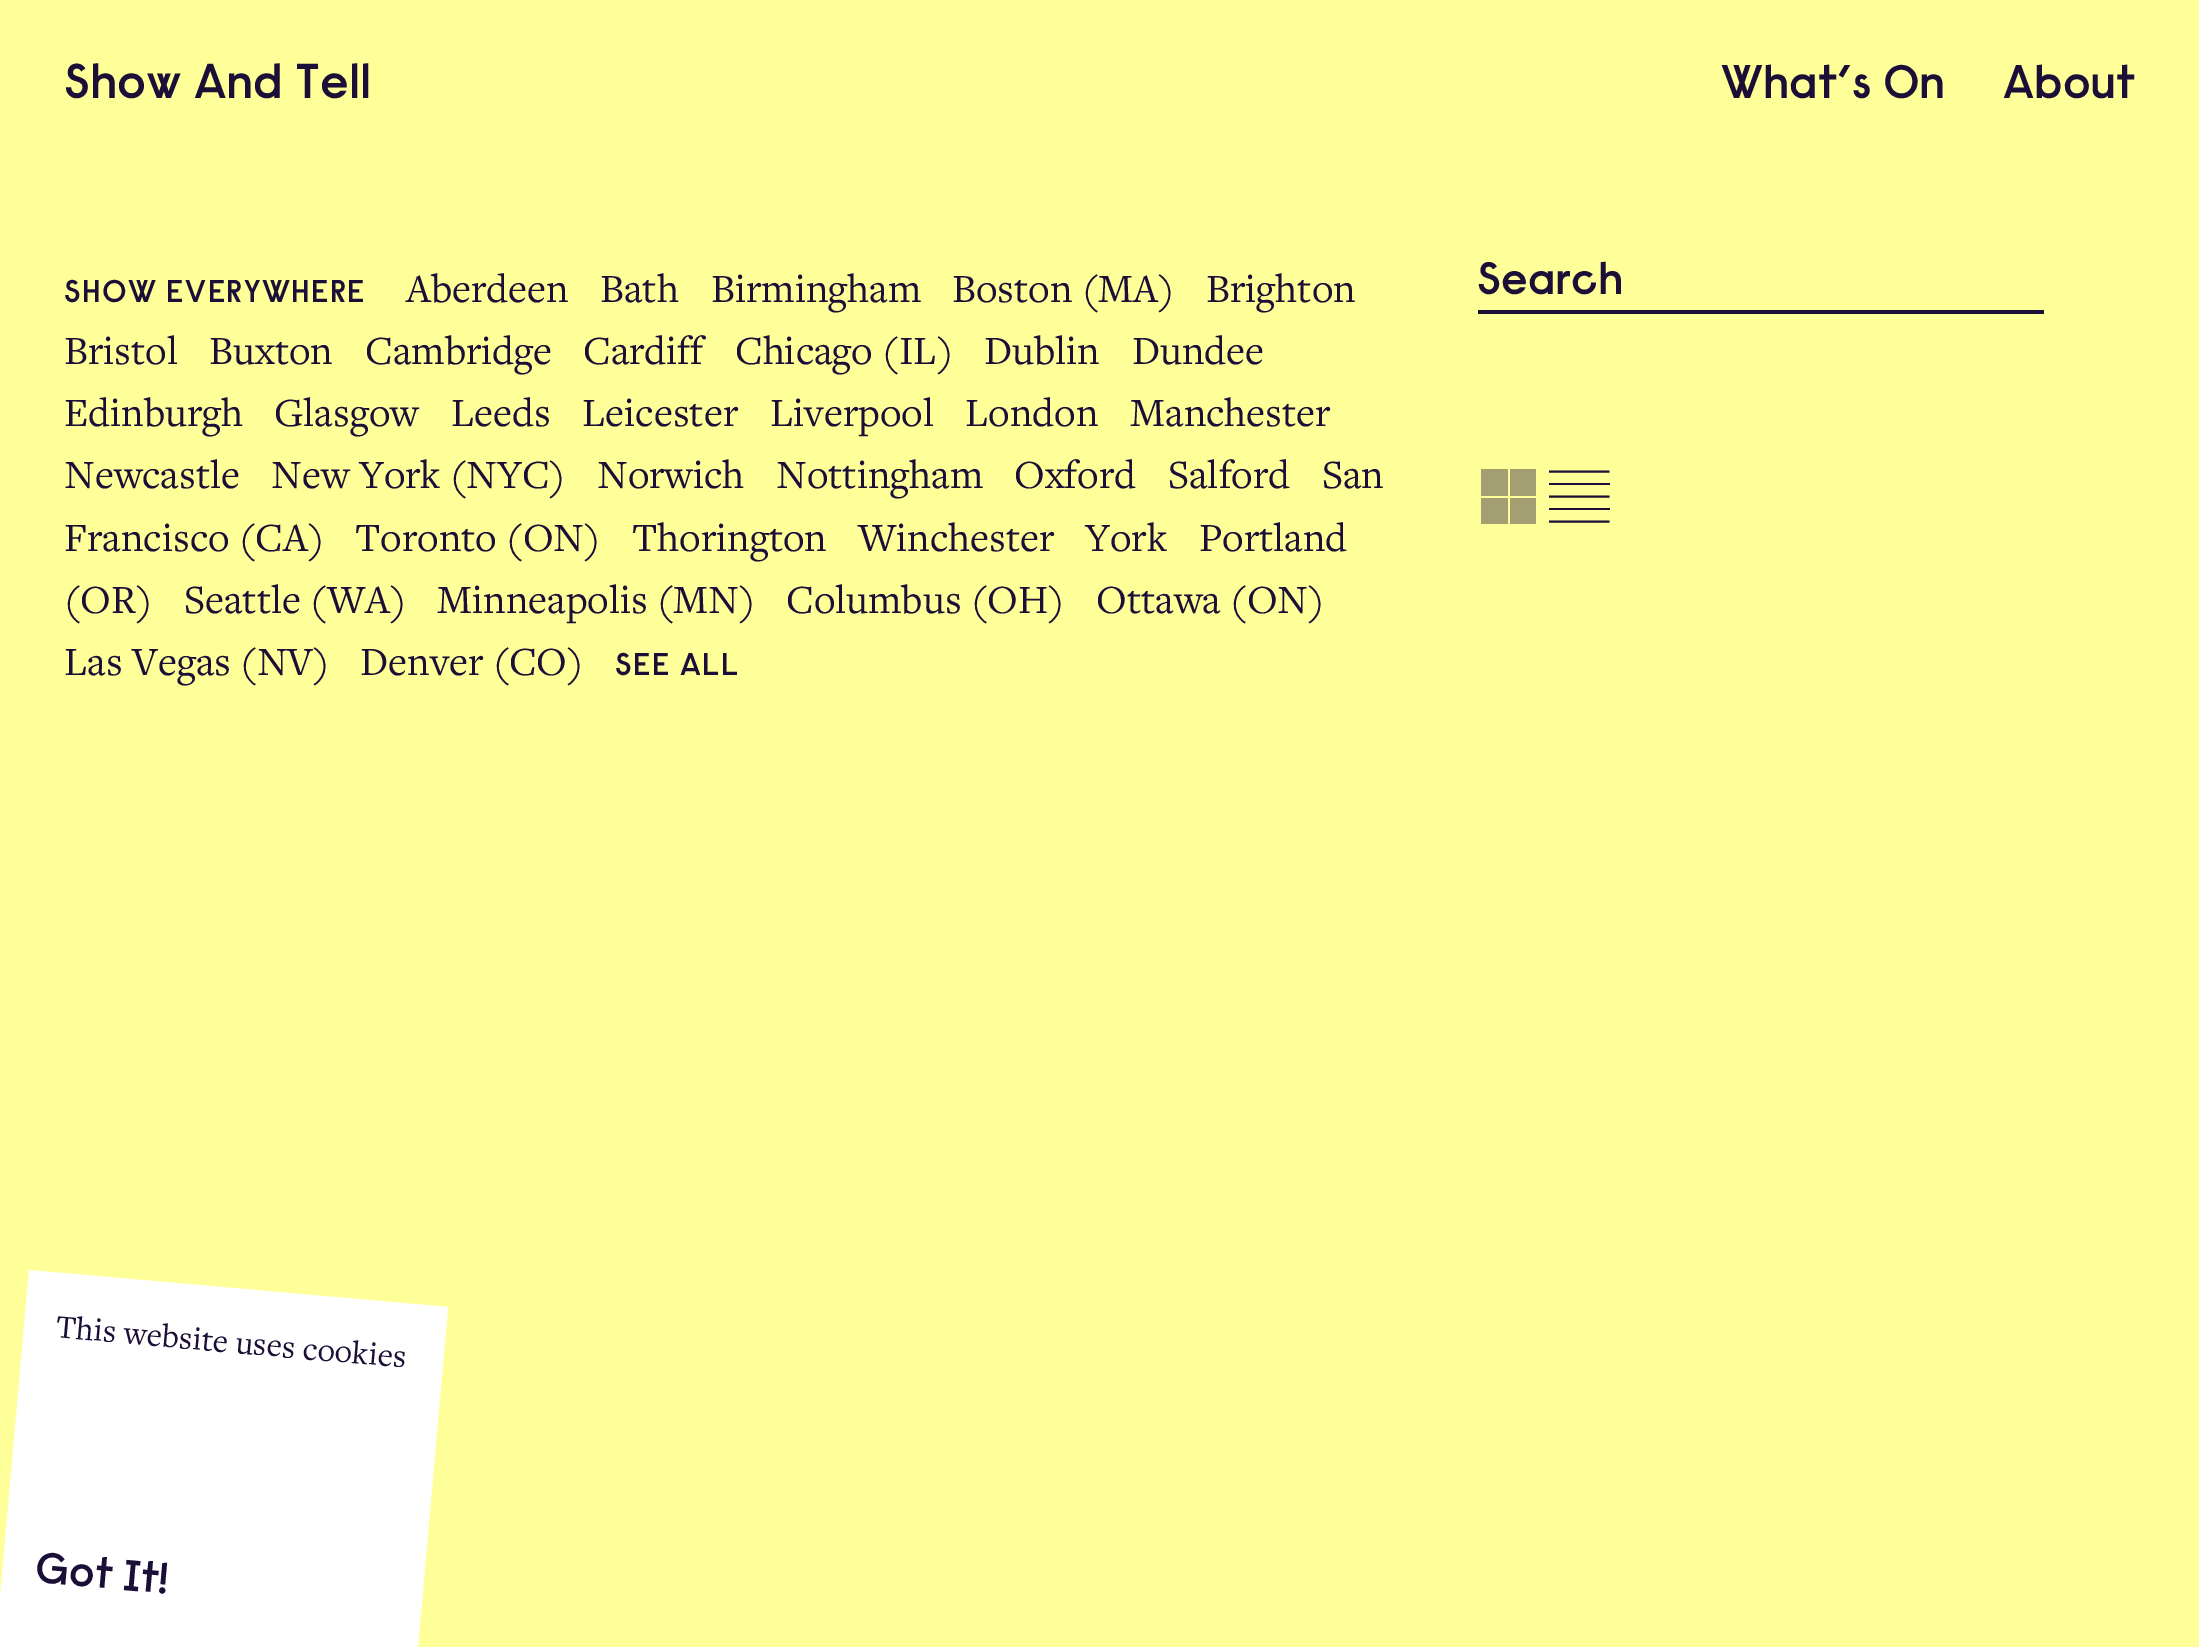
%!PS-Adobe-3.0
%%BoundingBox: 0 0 2199 1647
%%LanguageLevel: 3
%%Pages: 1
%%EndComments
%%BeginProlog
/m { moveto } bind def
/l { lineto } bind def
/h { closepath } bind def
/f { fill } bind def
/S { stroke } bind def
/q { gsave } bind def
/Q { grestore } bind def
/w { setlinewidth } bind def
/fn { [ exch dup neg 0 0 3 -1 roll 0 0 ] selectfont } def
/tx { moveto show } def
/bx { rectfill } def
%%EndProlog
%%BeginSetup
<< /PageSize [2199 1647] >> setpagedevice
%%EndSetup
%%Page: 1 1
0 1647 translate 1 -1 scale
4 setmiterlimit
1 1 0.6 setrgbcolor
0 0 2199 1647 bx
/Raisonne-SemiBold 49 fn
0.106 0.059 0.216 setrgbcolor
(Show And Tell) 64 98 tx
/Raisonne-SemiBold 47 fn
(What’s On) 1721 98 tx
(About) 2003 98 tx
/Raisonne-SemiBold 31.5 fn
64 302 m 1.4 0 (SHOW EVERYWHERE) ashow
/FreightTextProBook-Regular 41.5 fn
(Aberdeen) 406 302 tx
(Bath) 600 302 tx
(Birmingham) 711 302 tx
(Boston \(MA\)) 952 302 tx
(Brighton) 1206 302 tx
(Bristol) 64 364 tx
(Buxton) 209 364 tx
(Cambridge) 365 364 tx
(Cardiff) 583 364 tx
(Chicago \(IL\)) 735 364 tx
(Dublin) 984 364 tx
(Dundee) 1132 364 tx
(Edinburgh) 64 426 tx
(Glasgow) 274 426 tx
(Leeds) 451 426 tx
(Leicester) 582 426 tx
(Liverpool) 770 426 tx
(London) 965 426 tx
(Manchester) 1130 426 tx
(Newcastle) 64 488 tx
(New York \(NYC\)) 271 488 tx
(Norwich) 597 488 tx
(Nottingham) 776 488 tx
(Oxford) 1014 488 tx
(Salford) 1168 488 tx
(San) 1322 488 tx
(Francisco \(CA\)) 64 551 tx
(Toronto \(ON\)) 355 551 tx
(Thorington) 632 551 tx
(Winchester) 858 551 tx
(York) 1085 551 tx
(Portland) 1199 551 tx
(\(OR\)) 64 613 tx
(Seattle \(WA\)) 184 613 tx
(Minneapolis \(MN\)) 437 613 tx
(Columbus \(OH\)) 786 613 tx
(Ottawa \(ON\)) 1096 613 tx
(Las Vegas \(NV\)) 64 675 tx
(Denver \(CO\)) 360 675 tx
/Raisonne-SemiBold 31.5 fn
615 675 m 1.4 0 (SEE ALL) ashow
1478 310 566 4 bx
/Raisonne-SemiBold 45.5 fn
(Search) 1477 294 tx
0.643 0.624 0.447 setrgbcolor
1481 469 27 27 bx
1510 469 26 27 bx
0.106 0.059 0.216 setrgbcolor
2.1 w
1549 471.5 m 1609.5 471.5 l S
1549 483 61 2 bx
1549 496.5 m 1609.5 496.5 l S
0.643 0.624 0.447 setrgbcolor
1481 498 27 26 bx
1510 498 26 26 bx
0.106 0.059 0.216 setrgbcolor
1549 508 61 2 bx
1549 521.5 m 1609.5 521.5 l S
1 setgray
29 1270 m 448 1307 l 411 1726 l -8 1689 l h f
/FreightTextProBook-Regular 33.5 fn
0.106 0.059 0.216 setrgbcolor
q 55 1337 translate 5 rotate 0 0 m (This website uses cookies) show Q
/Raisonne-SemiBold 43.5 fn
q 34 1582 translate 5 rotate 0 0 m (Got It!) show Q
showpage
%%EOF
